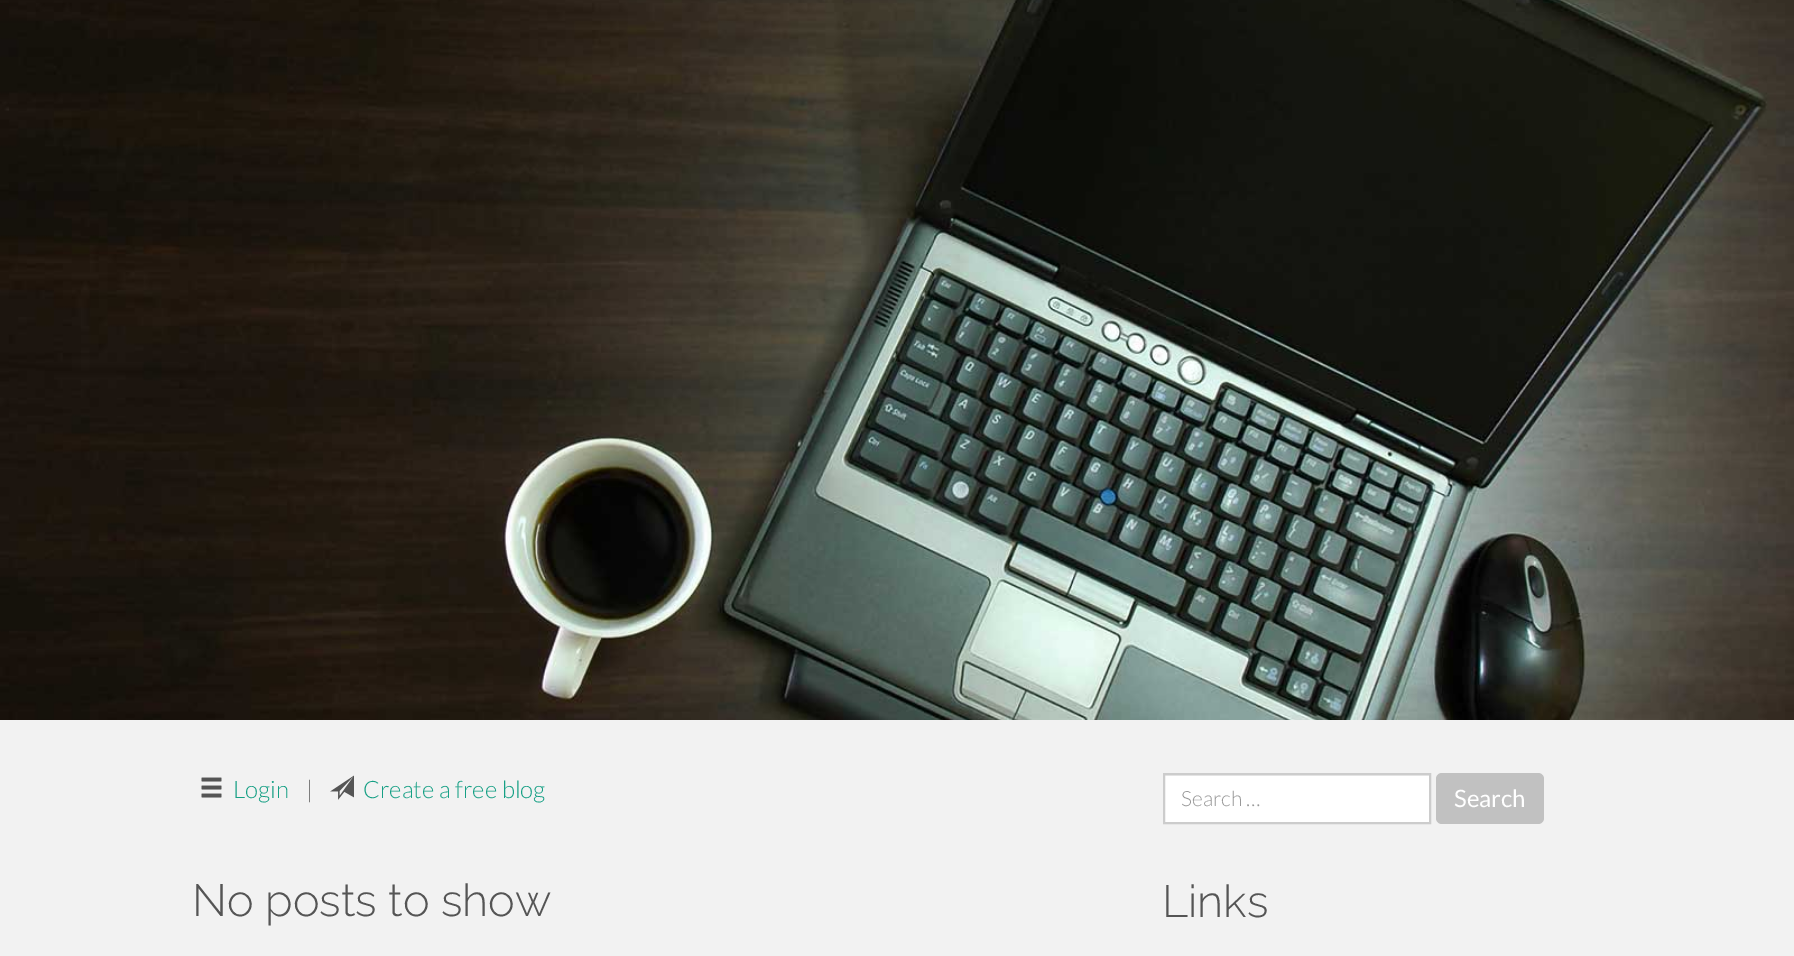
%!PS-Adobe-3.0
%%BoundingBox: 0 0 1794 956
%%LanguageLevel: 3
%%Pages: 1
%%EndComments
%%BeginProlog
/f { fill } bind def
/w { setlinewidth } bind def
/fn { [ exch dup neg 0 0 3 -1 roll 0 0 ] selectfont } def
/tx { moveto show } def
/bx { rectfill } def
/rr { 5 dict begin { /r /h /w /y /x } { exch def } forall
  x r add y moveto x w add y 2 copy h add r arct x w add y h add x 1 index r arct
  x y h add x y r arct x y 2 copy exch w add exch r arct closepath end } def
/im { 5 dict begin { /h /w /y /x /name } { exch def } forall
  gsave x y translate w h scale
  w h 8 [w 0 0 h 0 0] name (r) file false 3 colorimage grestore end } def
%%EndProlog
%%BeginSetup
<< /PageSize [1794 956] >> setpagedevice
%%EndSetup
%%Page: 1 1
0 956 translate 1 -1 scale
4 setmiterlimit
0.949 setgray
0 0 1794 956 bx
(image0.raw) 0 0 1794 720 im
(image1.raw) 201 777 21 21 im
/Lato-Light 24 fn
0.086 0.627 0.522 setrgbcolor
(Login) 233 798 tx
0.333 setgray
(|) 306 798 tx
(image2.raw) 330 775 24 25 im
0.086 0.627 0.522 setrgbcolor
(Create a free blog) 363 798 tx
/Raleway-Light 45 fn
0.333 setgray
(No posts to show) 192 916 tx
1 setgray
1165 776 264 46 bx
0.925 setgray
1164 775 266 1 bx
0.8 setgray
2 w
1164 774 266 49 rectstroke
/Lato-Light 21 fn
0.6 setgray
(Search …) 1181 806 tx
0.757 setgray
1436 773 108 51 6 rr f
/Lato-Regular 24 fn
1 setgray
(Search) 1454 807 tx
/Raleway-Light 45 fn
0.333 setgray
(Links) 1162 917 tx
showpage
%%EOF
